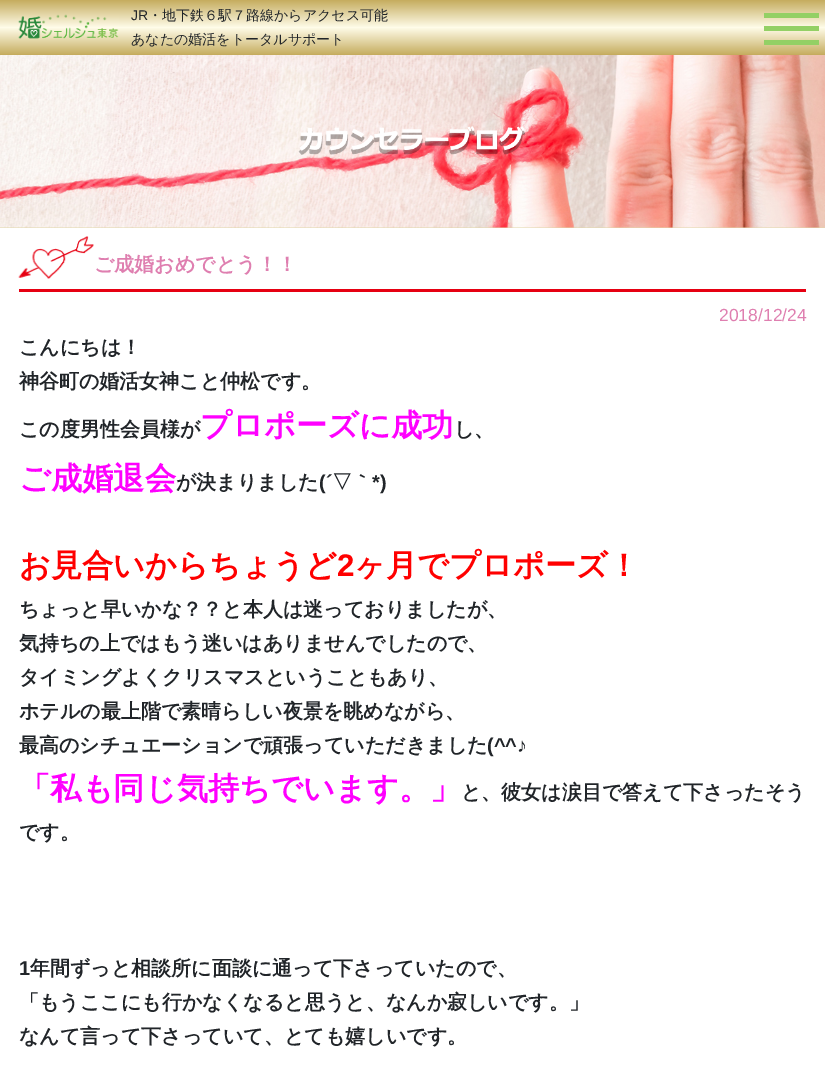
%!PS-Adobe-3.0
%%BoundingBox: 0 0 825 1081
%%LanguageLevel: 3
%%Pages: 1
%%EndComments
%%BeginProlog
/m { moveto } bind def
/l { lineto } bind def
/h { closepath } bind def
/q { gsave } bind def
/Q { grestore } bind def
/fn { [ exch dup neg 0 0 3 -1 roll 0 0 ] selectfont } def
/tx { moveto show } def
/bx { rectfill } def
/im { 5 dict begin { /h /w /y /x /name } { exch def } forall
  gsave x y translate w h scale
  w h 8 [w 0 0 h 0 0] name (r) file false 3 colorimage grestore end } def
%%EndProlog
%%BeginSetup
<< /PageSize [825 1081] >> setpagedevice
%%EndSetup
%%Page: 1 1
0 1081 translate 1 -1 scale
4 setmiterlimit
1 setgray
0 0 825 1081 bx
q 0 0 m 825 0 l 825 55 l 0 55 l h clip newpath
<< /ShadingType 2 /ColorSpace /DeviceRGB /Coords [413 0 413 55] /Extend [true true] /Function << /FunctionType 3 /Domain [0 1] /Functions [<< /FunctionType 2 /Domain [0 1] /C0 [0.773 0.675 0.369] /C1 [1 0.988 0.914] /N 1 >> << /FunctionType 2 /Domain [0 1] /C0 [1 0.988 0.914] /C1 [0.773 0.675 0.369] /N 1 >>] /Bounds [0.5] /Encode [0 1 0 1] >> >> shfill Q
(image0.raw) 18 14 101 25 im
/LiberationSans-Regular 14 fn
0.129 0.145 0.161 setrgbcolor
(JR) 131 20 tx
/WenQuanYiZenHei-Medium 14 fn
(・地下鉄６駅７路線からアクセス可能) 148 20 tx
(あなたの婚活をトータルサポート) 131 44 tx
0.576 0.816 0.396 setrgbcolor
764 13 55 5 bx
764 26 55 5 bx
764 40 55 5 bx
0.882 0.843 0.659 setrgbcolor
0 227 825 1 bx
(image1.raw) 0 55 825 173 im
(image2.raw) 298 126 227 29 im
(image3.raw) 18 236 76 43 im
0.902 0 0.071 setrgbcolor
19 289 787 3 bx
/WenQuanYiZenHei-Bold 20 fn
0.875 0.498 0.69 setrgbcolor
(ご成婚おめでとう！！) 94 271 tx
/LiberationSans-Regular 17.5 fn
(2018/12/24) 719 321 tx
/WenQuanYiZenHei-Bold 20 fn
0.129 0.145 0.161 setrgbcolor
(こんにちは！) 19 354 tx
(神谷町の婚活女神こと仲松です。) 19 388 tx
(この度男性会員様が) 19 436 tx
/WenQuanYiZenHei-Bold 31.25 fn
1 0 1 setrgbcolor
(プロポーズに成功) 200 436 tx
/WenQuanYiZenHei-Bold 20 fn
0.129 0.145 0.161 setrgbcolor
(し、) 454 436 tx
/WenQuanYiZenHei-Bold 31.25 fn
1 0 1 setrgbcolor
(ご成婚退会) 19 489 tx
/WenQuanYiZenHei-Bold 20 fn
0.129 0.145 0.161 setrgbcolor
(が決まりました) 176 489 tx
/LiberationSans-Bold 20 fn
(\(´) 319 489 tx
/WenQuanYiZenHei-Bold 20 fn
(▽｀) 332 489 tx
/LiberationSans-Bold 20 fn
(*\)) 372 489 tx
/WenQuanYiZenHei-Bold 31.25 fn
1 0 0 setrgbcolor
(お見合いからちょうど) 19 576 tx
/LiberationSans-Bold 31.25 fn
(2) 337 576 tx
/WenQuanYiZenHei-Bold 31.25 fn
(ヶ月でプロポーズ！) 354 576 tx
/WenQuanYiZenHei-Bold 20 fn
0.129 0.145 0.161 setrgbcolor
(ちょっと早いかな？？と本人は迷っておりましたが、) 19 616 tx
(気持ちの上ではもう迷いはありませんでしたので、) 19 650 tx
(タイミングよくクリスマスということもあり、) 19 684 tx
(ホテルの最上階で素晴らしい夜景を眺めながら、) 19 718 tx
(最高のシチュエーションで頑張っていただきました) 19 752 tx
/LiberationSans-Bold 20 fn
(\(^^♪) 487 752 tx
/WenQuanYiZenHei-Bold 31.25 fn
1 0 1 setrgbcolor
(「私も同じ気持ちでいます。」) 19 799 tx
/WenQuanYiZenHei-Bold 20 fn
0.129 0.145 0.161 setrgbcolor
(と、彼女は涙目で答えて下さったそう) 461 799 tx
(です。) 19 839 tx
/LiberationSans-Bold 20 fn
(1) 19 975 tx
/WenQuanYiZenHei-Bold 20 fn
(年間ずっと相談所に面談に通って下さっていたので、) 30 975 tx
(「もうここにも行かなくなると思うと、なんか寂しいです。」) 19 1009 tx
(なんて言って下さっていて、とても嬉しいです。) 19 1043 tx
showpage
%%EOF
